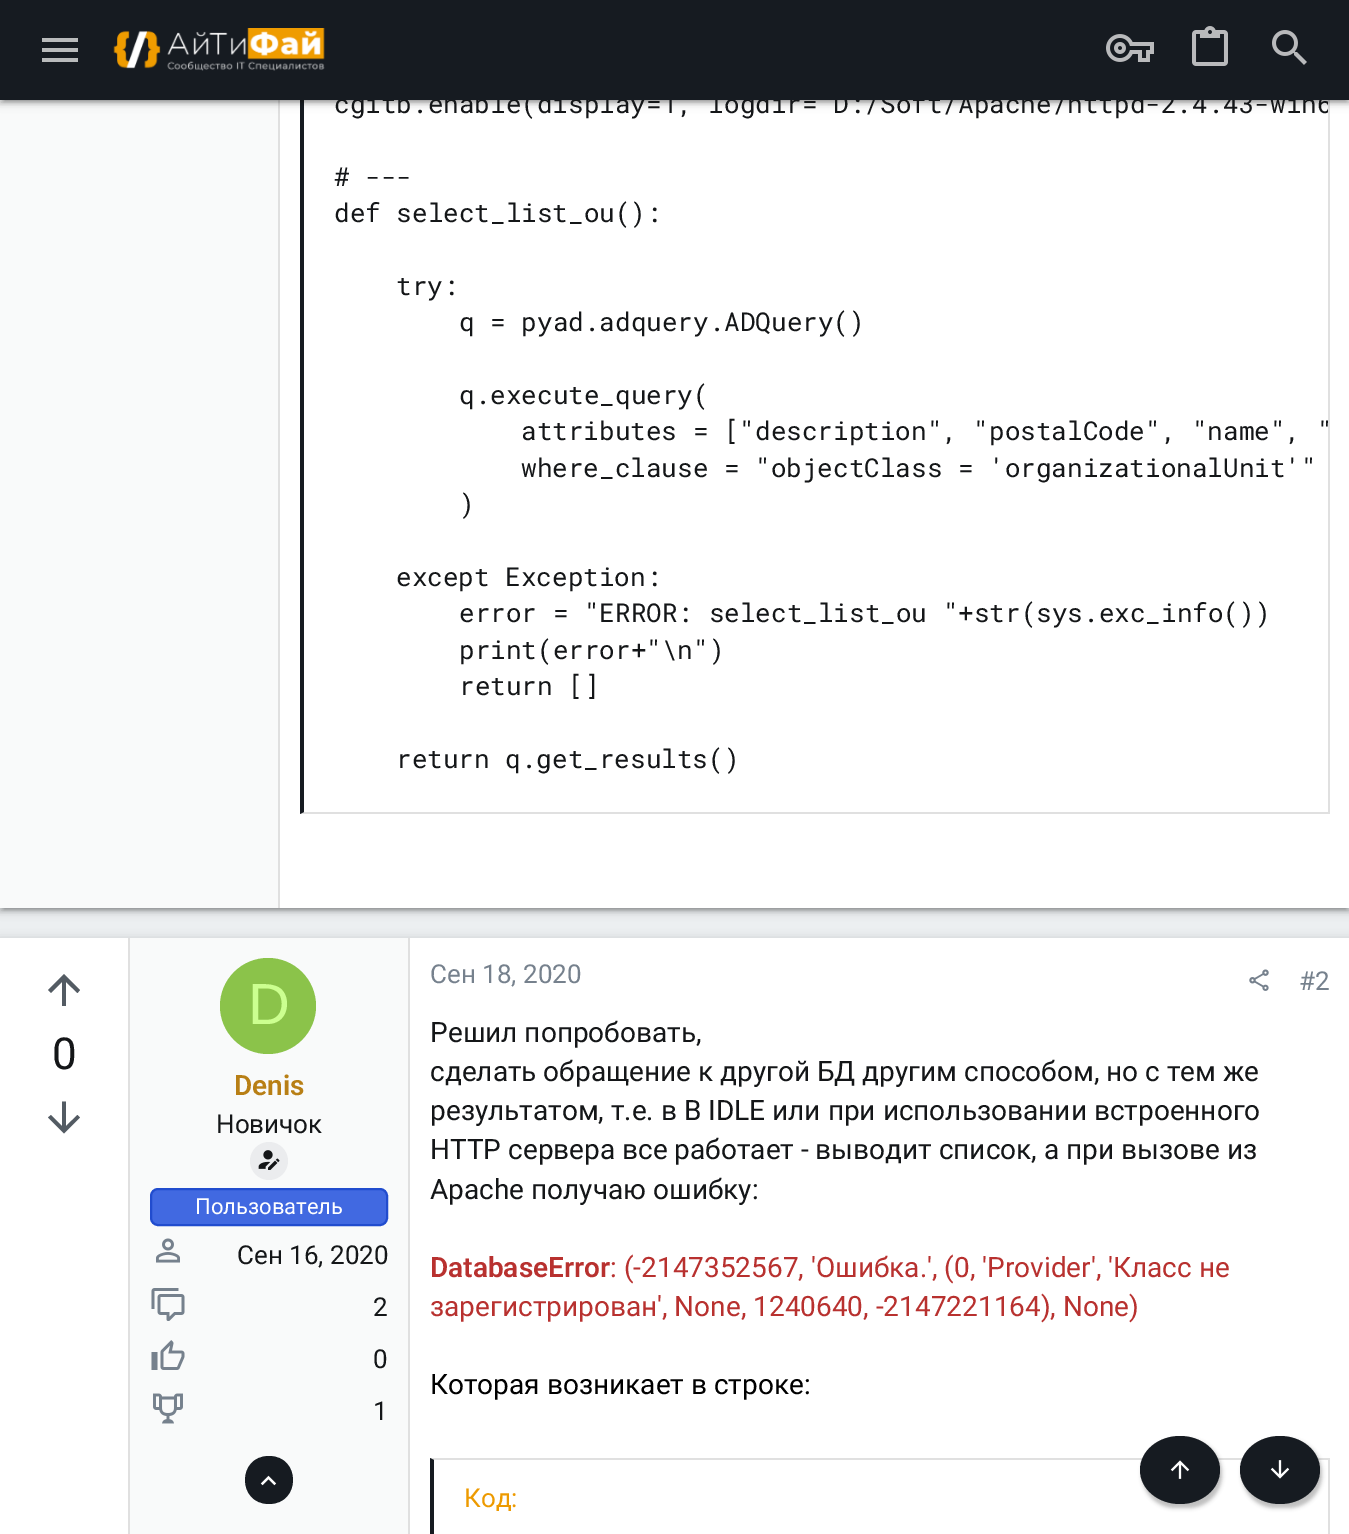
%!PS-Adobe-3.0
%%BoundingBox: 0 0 1349 1534
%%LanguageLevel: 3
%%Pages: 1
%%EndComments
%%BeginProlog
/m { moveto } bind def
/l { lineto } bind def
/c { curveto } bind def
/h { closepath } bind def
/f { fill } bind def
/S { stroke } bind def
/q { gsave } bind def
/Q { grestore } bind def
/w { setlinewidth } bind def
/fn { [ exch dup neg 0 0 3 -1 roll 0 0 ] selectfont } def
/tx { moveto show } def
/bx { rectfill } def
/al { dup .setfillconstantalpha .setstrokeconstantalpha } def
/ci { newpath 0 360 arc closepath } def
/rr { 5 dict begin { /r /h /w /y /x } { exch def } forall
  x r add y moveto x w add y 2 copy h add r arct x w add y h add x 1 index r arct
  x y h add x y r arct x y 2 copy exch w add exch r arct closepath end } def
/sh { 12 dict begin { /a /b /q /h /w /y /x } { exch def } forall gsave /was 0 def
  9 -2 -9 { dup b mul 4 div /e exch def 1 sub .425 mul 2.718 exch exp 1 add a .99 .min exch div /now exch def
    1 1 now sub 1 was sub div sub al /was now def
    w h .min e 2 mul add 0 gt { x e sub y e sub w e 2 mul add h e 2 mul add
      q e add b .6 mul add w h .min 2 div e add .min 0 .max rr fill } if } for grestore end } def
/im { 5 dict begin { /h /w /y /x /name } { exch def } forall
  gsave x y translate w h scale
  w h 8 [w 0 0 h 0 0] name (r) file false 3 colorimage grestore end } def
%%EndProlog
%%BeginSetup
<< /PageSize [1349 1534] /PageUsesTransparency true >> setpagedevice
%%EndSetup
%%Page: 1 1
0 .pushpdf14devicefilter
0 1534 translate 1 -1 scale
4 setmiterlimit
0.925 0.937 0.945 setrgbcolor
0 0 1349 1534 bx
0 setgray
0 -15 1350 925 0 5 0.2 sh
4 -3 1342 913 0 1 0.12 sh
0 -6 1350 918 0 2 0.14 sh
1 setgray
280 100 1069 808 bx
0.976 0.98 0.98 setrgbcolor
0 100 278 808 bx
0.878 setgray
278 100 2 808 bx
1328 100 2 714 bx
1330 814 m 300 814 l 304 812 l 1328 812 l h f
0.086 0.106 0.129 setrgbcolor
300 814 m 300 -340 l 304 -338 l 304 812 l h f
0 setgray
0 2 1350 100 0 5 0.2 sh
4 10 1342 92 0 1 0.12 sh
0 4 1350 100 0 2 0.14 sh
q
304 0 1024 812 rectclip
/RobotoMono-Regular 26 fn
0.078 0.086 0.094 setrgbcolor
(cgitb.enable\(display=1, logdir="D:/Soft/Apache/httpd-2.4.43-win6) 334 113 tx
Q
0.086 0.106 0.129 setrgbcolor
0 0 1349 100 bx
0.725 0.733 0.737 setrgbcolor
42 38 m 78 38 l 78 42 l 42 42 l h 42 48 m 78 48 l 78 52 l 42 52 l h 42 58 m 78 58 l 78 62 l 42 62 l h f
(image0.raw) 113 28 212 43 im
(image1.raw) 1106 34 48 28 im
(image2.raw) 1192 26 36 40 im
(image3.raw) 1272 30 35 35 im
/RobotoMono-Regular 26 fn
0.078 0.086 0.094 setrgbcolor
(# ---) 334 186 tx
(def select_list_ou\(\):) 334 222 tx
(try:) 396 295 tx
(q = pyad.adquery.ADQuery\(\)) 459 331 tx
(q.execute_query\() 459 404 tx
(attributes = ["description", "postalCode", "name", ") 521 440 tx
(where_clause = "objectClass = 'organizationalUnit'") 521 477 tx
(\)) 459 513 tx
(except Exception:) 396 586 tx
(error = "ERROR: select_list_ou "+str\(sys.exc_info\(\)\)) 459 622 tx
(print\(error+"\\n"\)) 459 659 tx
(return []) 459 695 tx
(return q.get_results\(\)) 396 768 tx
0 setgray
0 940 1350 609 0 5 0.2 sh
1 setgray
0 938 1349 596 bx
0.878 setgray
128 938 2 596 bx
0.325 0.357 0.388 setrgbcolor
66 1006 m 62 1006 l 62 982 l 51 993 l 48 990 l 64 974 l 80 990 l 77.5 993 l 66 982 l h f
/Roboto-Regular 44 fn
0.078 0.086 0.094 setrgbcolor
(0) 52 1069 tx
0.325 0.357 0.388 setrgbcolor
62 1101.5 m 66 1101.5 l 66 1126 l 77.5 1115 l 80 1117.5 l 64 1133.5 l 48 1117.5 l 51 1115 l 62 1126 l h f
0.976 0.98 0.98 setrgbcolor
130 938 278 596 bx
0.878 setgray
408 938 2 596 bx
0.545 0.765 0.29 setrgbcolor
268 1006 48 ci f
/LiberationSans-Regular 58 fn
0.8 1 0.565 setrgbcolor
(D) 248 1024 tx
/Roboto-SemiBold 28 fn
0.722 0.498 0.082 setrgbcolor
(Denis) 234 1095 tx
/Roboto-Regular 26 fn
0.078 0.086 0.094 setrgbcolor
(Новичок) 216 1133 tx
0.922 0.925 0.933 setrgbcolor
269 1161 19 ci f
(image4.raw) 258 1150 22 20 im
0.255 0.412 0.882 setrgbcolor
151 1189 236 36 7 rr q f Q
0.129 0.298 0.808 setrgbcolor
2 w
S
/Roboto-Regular 22 fn
1 setgray
(Пользователь) 195 1214 tx
(image5.raw) 156 1238 24 25 im
/Roboto-Regular 26 fn
0.078 0.086 0.094 setrgbcolor
(Сен 16, 2020) 237 1264 tx
(image6.raw) 151 1288 34 33 im
(2) 373 1316 tx
(image7.raw) 151 1340 34 30 im
(0) 373 1368 tx
(image8.raw) 153 1393 30 31 im
(1) 373 1420 tx
0.086 0.106 0.129 setrgbcolor
269 1504 m 237 1504 237 1456 269 1456 c 301 1456 301 1504 269 1504 c h f
(image9.raw) 260 1475 17 11 im
0.463 0.506 0.553 setrgbcolor
(Сен 18, 2020) 430 983 tx
(image10.raw) 1249 969 20 22 im
(#2) 1299 990 tx
/Roboto-Regular 28 fn
0.078 0.086 0.094 setrgbcolor
(Решил попробовать,) 430 1042 tx
(сделать обращение к другой БД другим способом, но с тем же) 430 1081 tx
(результатом, т.е. в В IDLE или при использовании встроенного) 430 1120 tx
(HTTP сервера все работает - выводит список, а при вызове из) 430 1159 tx
(Apache получаю ошибку:) 430 1199 tx
/Roboto-SemiBold 28 fn
0.722 0.192 0.184 setrgbcolor
(DatabaseError) 430 1277 tx
/Roboto-Regular 28 fn
(: \(-2147352567, 'Ошибка.', \(0, 'Provider', 'Класс не) 610 1277 tx
(зарегистрирован', None, 1240640, -2147221164\), None\)) 430 1316 tx
0 setgray
(Которая возникает в строке:) 430 1394 tx
0.878 setgray
430 1458 m 1330 1458 l 1328 1460 l 434 1460 l h f
1328 1458 2 76 bx
0.086 0.106 0.129 setrgbcolor
430 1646 m 430 1458 l 434 1460 l 434 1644 l h f
/Roboto-Regular 26 fn
0.929 0.604 0 setrgbcolor
(Код:) 464 1507 tx
0 setgray
1142 1440 80 68 34 2 0.25 sh
0.086 0.106 0.129 setrgbcolor
1180 1436 m 1202 1436 1220 1451 1220 1470 c 1220 1489 1202 1504 1180 1504 c 1158 1504 1140 1489 1140 1470 c 1140 1451 1158 1436 1180 1436 c h f
(image11.raw) 1170 1460 20 19 im
0 setgray
1242 1440 80 68 34 2 0.25 sh
0.086 0.106 0.129 setrgbcolor
1280 1436 m 1302 1436 1320 1451 1320 1470 c 1320 1489 1302 1504 1280 1504 c 1258 1504 1240 1489 1240 1470 c 1240 1451 1258 1436 1280 1436 c h f
(image12.raw) 1270 1460 20 19 im
.poppdf14devicefilter showpage
%%EOF
